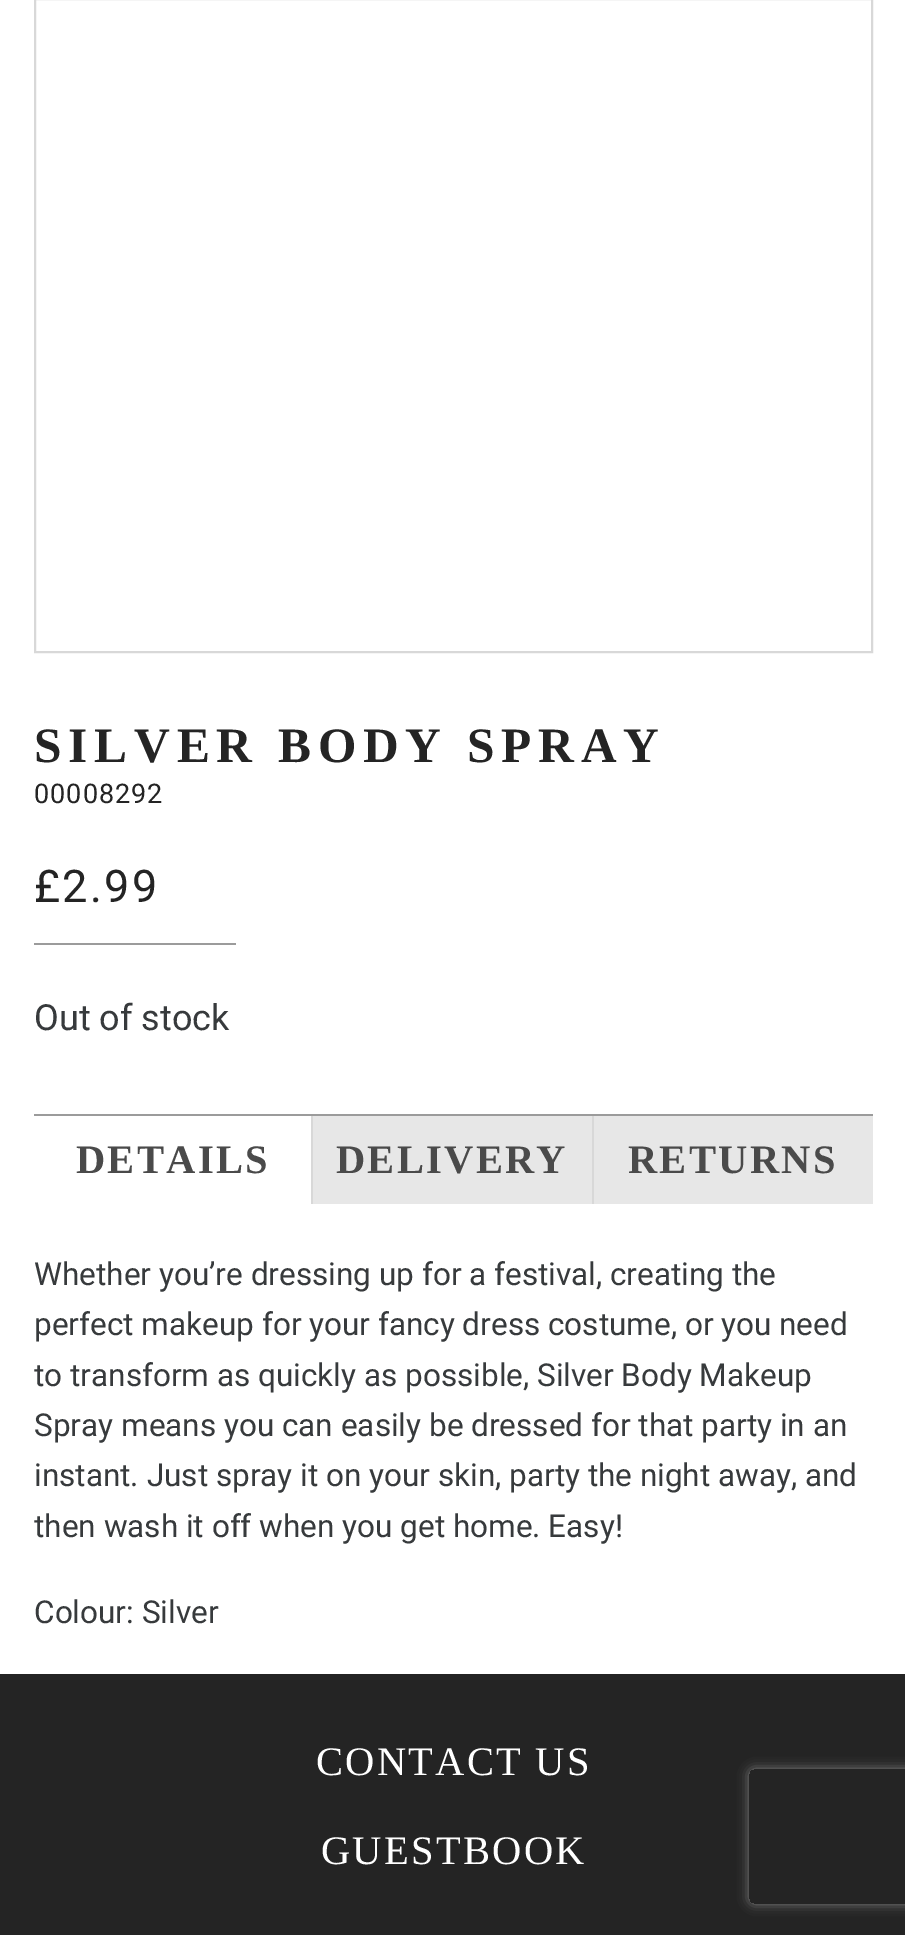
%!PS-Adobe-3.0
%%BoundingBox: 0 0 905 1935
%%LanguageLevel: 3
%%Pages: 1
%%EndComments
%%BeginProlog
/m { moveto } bind def
/l { lineto } bind def
/c { curveto } bind def
/h { closepath } bind def
/q { gsave } bind def
/Q { grestore } bind def
/w { setlinewidth } bind def
/fn { [ exch dup neg 0 0 3 -1 roll 0 0 ] selectfont } def
/tx { moveto show } def
/bx { rectfill } def
/al { dup .setfillconstantalpha .setstrokeconstantalpha } def
/rr { 5 dict begin { /r /h /w /y /x } { exch def } forall
  x r add y moveto x w add y 2 copy h add r arct x w add y h add x 1 index r arct
  x y h add x y r arct x y 2 copy exch w add exch r arct closepath end } def
/sh { 12 dict begin { /a /b /q /h /w /y /x } { exch def } forall gsave /was 0 def
  9 -2 -9 { dup b mul 4 div /e exch def 1 sub .425 mul 2.718 exch exp 1 add a .99 .min exch div /now exch def
    1 1 now sub 1 was sub div sub al /was now def
    w h .min e 2 mul add 0 gt { x e sub y e sub w e 2 mul add h e 2 mul add
      q e add b .6 mul add w h .min 2 div e add .min 0 .max rr fill } if } for grestore end } def
%%EndProlog
%%BeginSetup
<< /PageSize [905 1935] /PageUsesTransparency true >> setpagedevice
%%EndSetup
%%Page: 1 1
0 .pushpdf14devicefilter
0 1935 translate 1 -1 scale
4 setmiterlimit
0.141 setgray
0 0 905 1935 bx
1 setgray
0 0 905 1674 bx
0.847 setgray
2 w
35 -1 837 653 rectstroke
/LiberationSerif-Bold 49.5 fn
0.141 setgray
34 762 m 6.75 0 (SILVER BODY SPRAY) ashow
/Roboto-Regular 27 fn
34 803 m 1 0 (00008292) ashow
/Roboto-Regular 45 fn
34 902 m 2.25 0 (£2.99) ashow
0.608 setgray
34 943 202 2 bx
/Roboto-Regular 36 fn
0.216 0.227 0.235 setrgbcolor
(Out of stock) 34 1030 tx
0.608 setgray
34 1114 839 2 bx
0.847 setgray
311 1116 2 88 bx
/LiberationSerif-Bold 40.5 fn
0.29 setgray
76 1173 m 2.25 0 (DETAILS) ashow
0.906 setgray
313 1116 279 88 bx
0.847 setgray
592 1116 2 88 bx
0.29 setgray
336 1173 m 2.25 0 (DELIVERY) ashow
0.906 setgray
594 1116 279 88 bx
0.29 setgray
628 1173 m 2.25 0 (RETURNS) ashow
/Roboto-Regular 31.5 fn
0.216 0.227 0.235 setrgbcolor
(Whether you’re dressing up for a festival, creating the) 34 1285 tx
(perfect makeup for your fancy dress costume, or you need) 34 1335 tx
(to transform as quickly as possible, Silver Body Makeup) 34 1386 tx
(Spray means you can easily be dressed for that party in an) 34 1436 tx
(instant. Just spray it on your skin, party the night away, and) 34 1486 tx
(then wash it off when you get home. Easy!) 34 1537 tx
(Colour: Silver) 34 1623 tx
/LiberationSerif-Regular 40.5 fn
1 setgray
316 1775 m 2.25 0 (CONTACT US) ashow
321 1864 m 2.25 0 (GUESTBOOK) ashow
q
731 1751 m 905 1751 l 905 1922 l 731 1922 l h 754 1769 m 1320 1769 l 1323 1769 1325 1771 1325 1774 c 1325 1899 l 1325 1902 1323 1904 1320 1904 c 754 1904 l 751 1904 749 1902 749 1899 c 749 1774 l 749 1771 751 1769 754 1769 c h eoclip newpath
0.502 setgray
749 1769 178 135 5 5.5 1 sh
Q
.poppdf14devicefilter showpage
%%EOF
